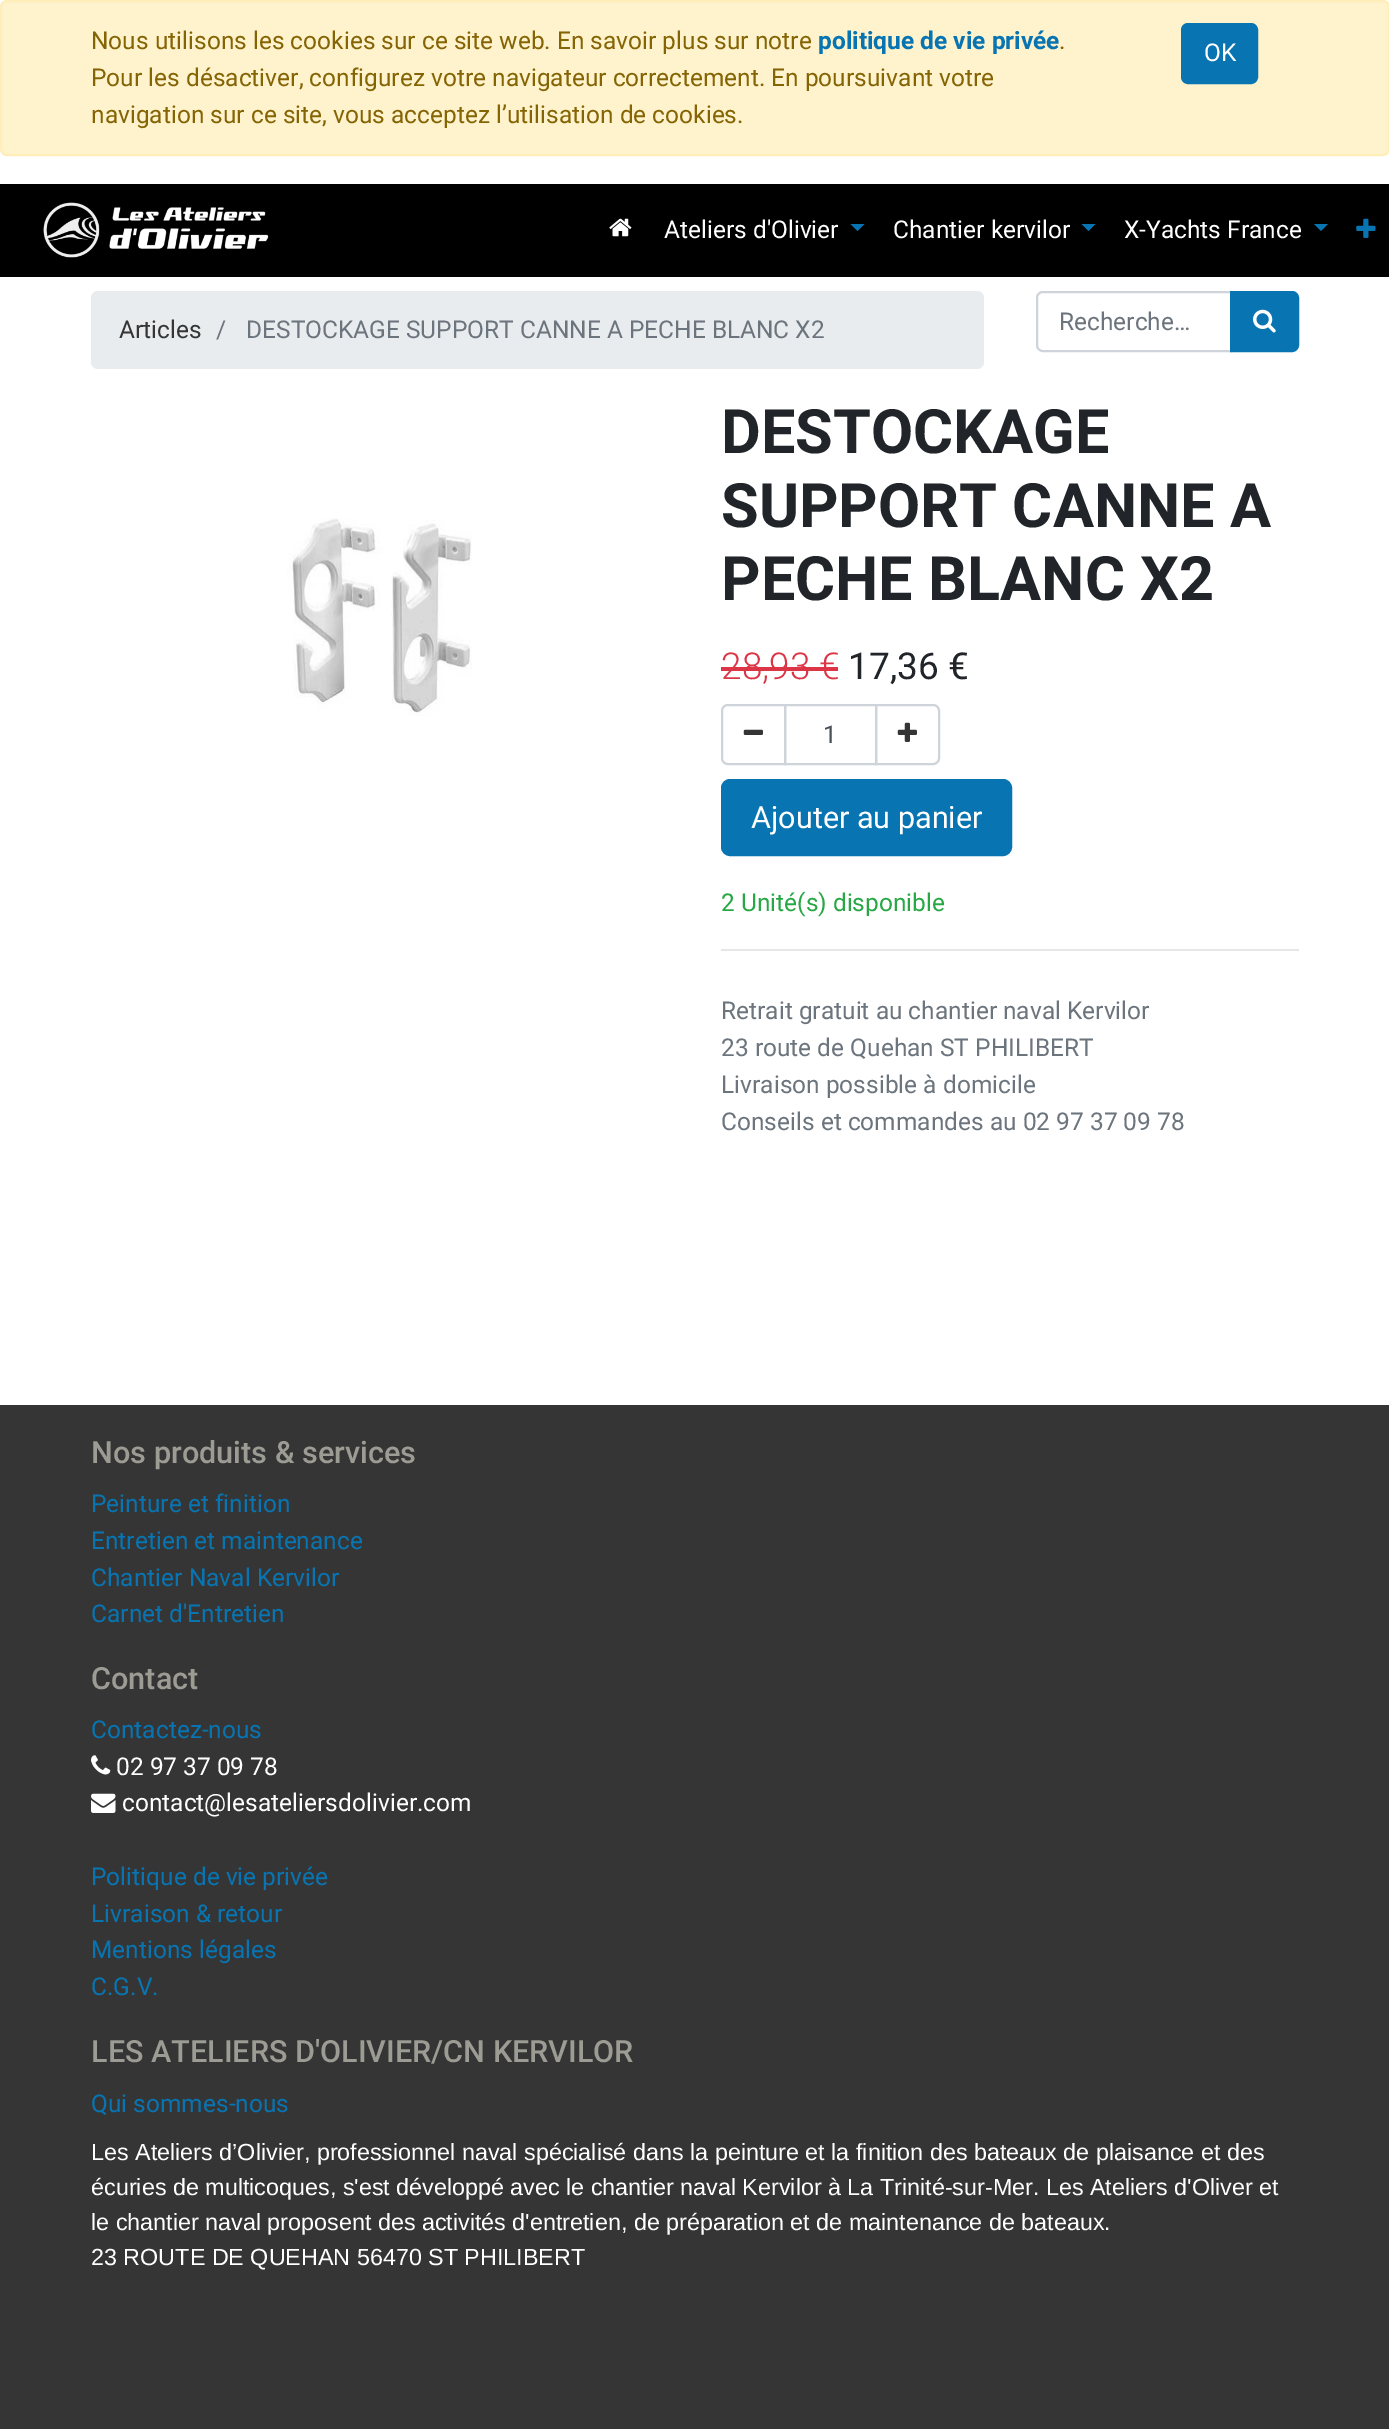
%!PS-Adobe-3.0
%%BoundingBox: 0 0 1389 2429
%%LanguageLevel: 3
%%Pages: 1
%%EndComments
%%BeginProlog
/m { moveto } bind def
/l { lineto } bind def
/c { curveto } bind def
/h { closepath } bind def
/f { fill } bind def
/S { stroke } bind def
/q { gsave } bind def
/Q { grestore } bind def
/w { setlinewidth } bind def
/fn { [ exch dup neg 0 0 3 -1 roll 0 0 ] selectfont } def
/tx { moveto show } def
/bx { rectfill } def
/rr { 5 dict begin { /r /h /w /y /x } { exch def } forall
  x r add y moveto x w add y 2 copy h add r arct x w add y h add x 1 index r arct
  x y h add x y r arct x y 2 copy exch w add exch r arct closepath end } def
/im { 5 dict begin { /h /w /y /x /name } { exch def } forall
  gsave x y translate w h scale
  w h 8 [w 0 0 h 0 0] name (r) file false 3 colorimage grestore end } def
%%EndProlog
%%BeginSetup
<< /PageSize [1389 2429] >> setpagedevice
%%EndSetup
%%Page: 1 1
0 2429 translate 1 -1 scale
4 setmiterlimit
1 setgray
0 0 1389 2429 bx
1 0.953 0.804 setrgbcolor
1 1 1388 154 6 rr q f Q
1 0.933 0.729 setrgbcolor
2 w
S
/Roboto-Regular 24.5 fn
0.522 0.392 0.016 setrgbcolor
(Nous utilisons les cookies sur ce site web. En savoir plus sur notre) 91 49 tx
/Roboto-Bold 24.5 fn
0.031 0.459 0.698 setrgbcolor
(politique de vie privée) 818 49 tx
/Roboto-Regular 24.5 fn
0.522 0.392 0.016 setrgbcolor
(.) 1059 49 tx
(Pour les désactiver, configurez votre navigateur correctement. En poursuivant votre) 91 86 tx
(navigation sur ce site, vous acceptez l’utilisation de cookies.) 91 123 tx
0.031 0.459 0.698 setrgbcolor
1182 24 75 59 6 rr q f Q
S
1 setgray
(OK) 1204 61 tx
0 setgray
0 184 1389 93 bx
(image0.raw) 43 202 226 56 im
(image1.raw) 609 218 23 19 im
1 setgray
(Ateliers d'Olivier) 664 238 tx
0.031 0.459 0.698 setrgbcolor
850.5 224 m 864.5 224 l 857.5 231 l h f
1 setgray
(Chantier kervilor) 893 238 tx
0.031 0.459 0.698 setrgbcolor
1081.5 224 m 1095.5 224 l 1088.5 231 l h f
1 setgray
(X-Yachts France) 1124 238 tx
0.031 0.459 0.698 setrgbcolor
1314 224 m 1328 224 l 1321 231 l h f
(image2.raw) 1356 218 20 20 im
0.914 0.925 0.937 setrgbcolor
91 291 893 78 7 rr f
0.208 setgray
(Articles) 119 338 tx
0.424 0.459 0.49 setrgbcolor
(/) 216 338 tx
(DESTOCKAGE SUPPORT CANNE A PECHE BLANC X2) 246 338 tx
0.808 0.831 0.855 setrgbcolor
1043 292 m 1231 292 l 1231 351 l 1043 351 l 1039.5 351 1037 348.5 1037 345 c 1037 298 l 1037 294.5 1039.5 292 1043 292 c h S
0.424 0.459 0.49 setrgbcolor
(Recherche…) 1059 330 tx
0.031 0.459 0.698 setrgbcolor
1231 292 m 1292 292 l 1295.5 292 1298 294.5 1298 298 c 1298 345 l 1298 348.5 1295.5 351 1292 351 c 1231 351 l h q f Q
S
(image3.raw) 1253 309 23 24 im
(image4.raw) 287 518 185 198 im
/Roboto-Bold 61.25 fn
0.129 0.145 0.161 setrgbcolor
(DESTOCKAGE) 721 453 tx
(SUPPORT CANNE A) 721 527 tx
(PECHE BLANC X2) 721 600 tx
/Roboto-Light 37 fn
0.863 0.208 0.271 setrgbcolor
(28,93 €) 721 679 tx
721 667 117 4 bx
/Roboto-Regular 37 fn
0.129 0.145 0.161 setrgbcolor
(17,36 €) 848 679 tx
0.808 0.831 0.855 setrgbcolor
785 705 91 59 rectstroke
728 705 m 785 705 l 785 764 l 728 764 l 724.5 764 722 761.5 722 758 c 722 711 l 722 707.5 724.5 705 728 705 c h S
(image5.raw) 743 729 20 6 im
/Roboto-Regular 24.5 fn
0.286 0.314 0.341 setrgbcolor
(1) 823 743 tx
0.808 0.831 0.855 setrgbcolor
876 705 m 933 705 l 936.5 705 939 707.5 939 711 c 939 758 l 939 761.5 936.5 764 933 764 c 876 764 l h S
(image6.raw) 897 722 20 20 im
0.031 0.459 0.698 setrgbcolor
722 780 289 75 8 rr q f Q
S
/Roboto-Regular 30.6 fn
1 setgray
(Ajouter au panier) 751 828 tx
/Roboto-Regular 24.5 fn
0.157 0.655 0.271 setrgbcolor
(2 Unité\(s\) disponible) 721 911 tx
0.902 setgray
721 949 578 2 bx
0.424 0.459 0.49 setrgbcolor
(Retrait gratuit au chantier naval Kervilor) 721 1019 tx
(23 route de Quehan ST PHILIBERT) 721 1056 tx
(Livraison possible à domicile) 721 1093 tx
(Conseils et commandes au 02 97 37 09 78) 721 1130 tx
0.208 setgray
0 1405 1389 1024 bx
/Roboto-Medium 30.6 fn
0.612 0.612 0.58 setrgbcolor
(Nos produits & services) 91 1463 tx
/Roboto-Regular 24.5 fn
0.031 0.459 0.698 setrgbcolor
(Peinture et finition) 91 1512 tx
(Entretien et maintenance) 91 1549 tx
(Chantier Naval Kervilor) 91 1586 tx
(Carnet d'Entretien) 91 1622 tx
/Roboto-Medium 30.6 fn
0.612 0.612 0.58 setrgbcolor
(Contact) 91 1689 tx
/Roboto-Regular 24.5 fn
0.031 0.459 0.698 setrgbcolor
(Contactez-nous) 91 1738 tx
(image7.raw) 91 1755 20 20 im
1 setgray
(02 97 37 09 78) 116 1775 tx
(image8.raw) 91 1793 25 20 im
(contact@lesateliersdolivier.com) 122 1811 tx
0.031 0.459 0.698 setrgbcolor
(Politique de vie privée) 91 1885 tx
(Livraison & retour) 91 1922 tx
(Mentions légales) 91 1958 tx
(C.G.V.) 91 1995 tx
/Roboto-Medium 30.6 fn
0.612 0.612 0.58 setrgbcolor
(LES ATELIERS D'OLIVIER/CN KERVILOR) 91 2062 tx
/Roboto-Regular 24.5 fn
0.031 0.459 0.698 setrgbcolor
(Qui sommes-nous) 91 2112 tx
/LiberationSans-Regular 23.33 fn
1 setgray
(Les Ateliers d’Olivier, professionnel naval spécialisé dans la peinture et la finition des bateaux de plaisance et des) 91 2160 tx
(écuries de multicoques, s'est développé avec le chantier naval Kervilor à La Trinité-sur-Mer. Les Ateliers d'Oliver et) 91 2195 tx
(le chantier naval proposent des activités d'entretien, de préparation et de maintenance de bateaux.) 91 2230 tx
(23 ROUTE DE QUEHAN 56470 ST PHILIBERT) 91 2265 tx
showpage
%%EOF
